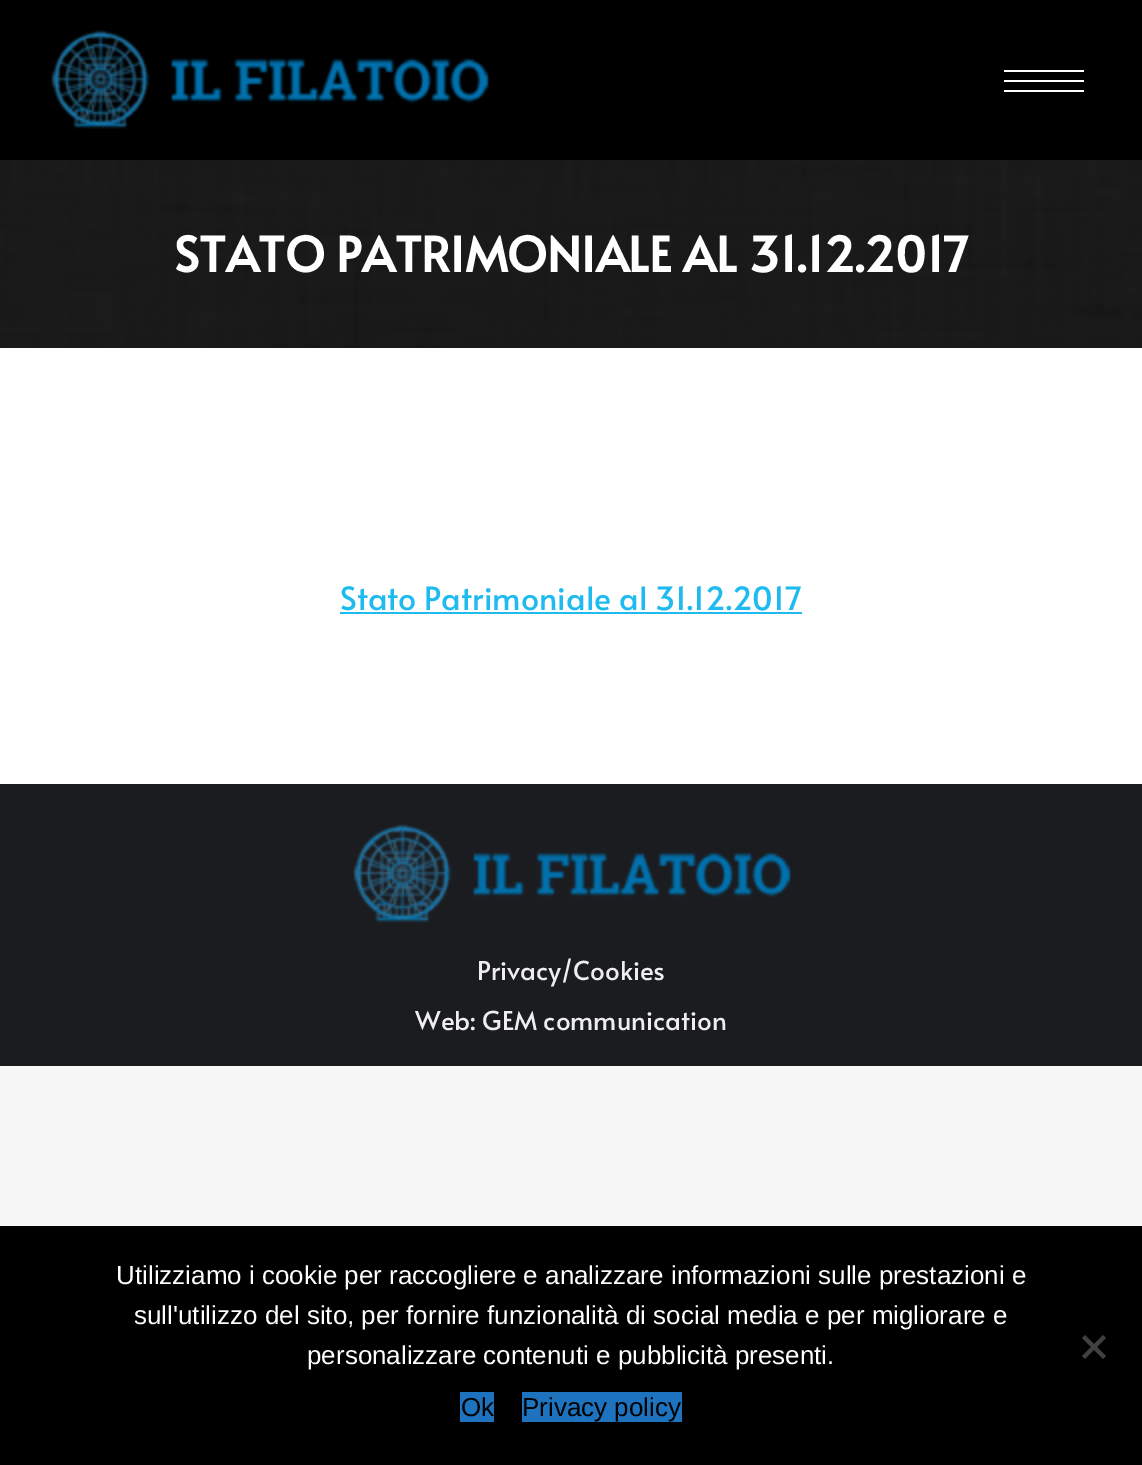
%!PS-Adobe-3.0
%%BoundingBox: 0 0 1142 1465
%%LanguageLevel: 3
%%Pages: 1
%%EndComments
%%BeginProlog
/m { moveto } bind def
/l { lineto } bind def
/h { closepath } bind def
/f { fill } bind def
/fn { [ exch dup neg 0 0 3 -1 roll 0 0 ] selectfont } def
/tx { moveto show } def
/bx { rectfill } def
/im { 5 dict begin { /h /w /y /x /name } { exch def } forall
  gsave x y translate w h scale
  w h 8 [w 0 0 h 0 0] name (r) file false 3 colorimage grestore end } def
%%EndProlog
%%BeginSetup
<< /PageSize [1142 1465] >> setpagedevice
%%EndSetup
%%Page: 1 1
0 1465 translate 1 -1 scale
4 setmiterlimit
0.969 setgray
0 0 1142 1465 bx
1 setgray
0 348 1142 436 bx
0 setgray
0 0 1142 160 bx
(image0.raw) 51 29 438 100 im
1 setgray
1004 70 80 2 bx
1004 80 80 2 bx
1004 90 80 2 bx
(image1.raw) 0 160 1142 188 im
/Alata-Bold 48 fn
(STATO PATRIMONIALE AL 31.12.2017) 174 272 tx
/Alata-Regular 32 fn
0.118 0.733 0.941 setrgbcolor
(Stato Patrimoniale al 31.12.2017) 340 610 tx
340 612 462 2 bx
0.102 0.11 0.125 setrgbcolor
0 784 1142 282 bx
(image2.raw) 353 823 438 100 im
/Alata-Regular 26 fn
0.933 setgray
(Privacy/Cookies) 477 980 tx
(Web: GEM communication) 415 1030 tx
0 setgray
0 1226 1142 239 bx
/LiberationSans-Regular 26 fn
1 setgray
(Utilizziamo i cookie per raccogliere e analizzare informazioni sulle prestazioni e) 116 1284 tx
(sull'utilizzo del sito, per fornire funzionalità di social media e per migliorare e) 134 1324 tx
(personalizzare contenuti e pubblicità presenti.) 307 1364 tx
0.251 setgray
1103 1335 m 1106 1338 l 1085 1359 l 1082 1356 l h f
1082 1338 m 1085 1335 l 1106 1356 l 1103 1359 l h f
0.118 0.451 0.745 setrgbcolor
460 1392 34 30 bx
0 setgray
(Ok) 461 1416 tx
0.118 0.451 0.745 setrgbcolor
522 1392 160 30 bx
0 setgray
(Privacy policy) 522 1416 tx
showpage
%%EOF
